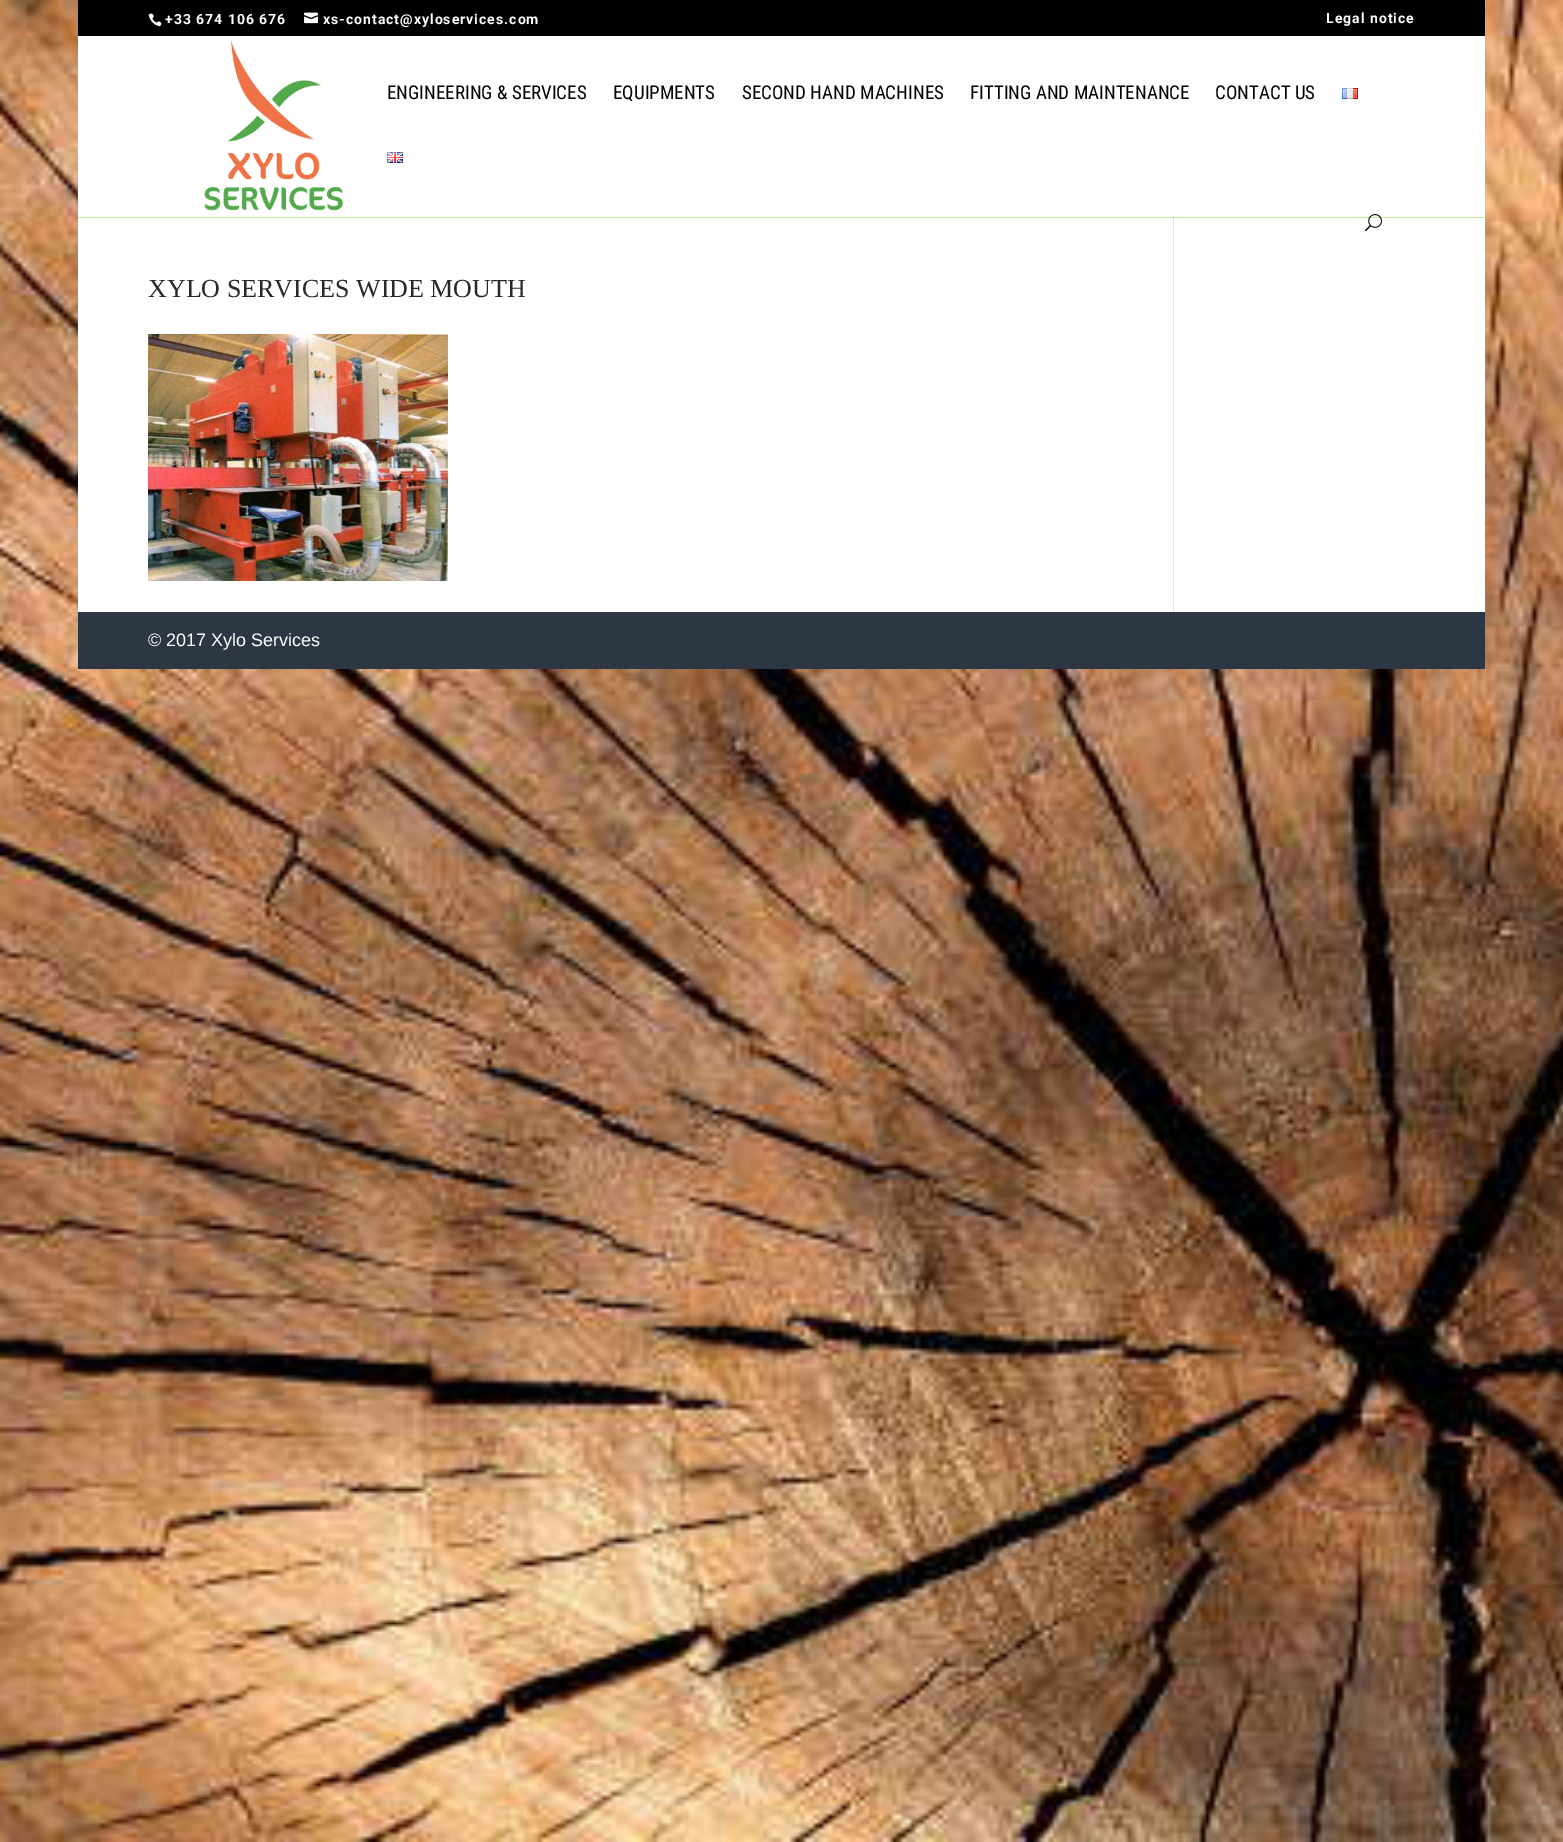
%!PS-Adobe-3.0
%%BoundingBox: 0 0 1563 1842
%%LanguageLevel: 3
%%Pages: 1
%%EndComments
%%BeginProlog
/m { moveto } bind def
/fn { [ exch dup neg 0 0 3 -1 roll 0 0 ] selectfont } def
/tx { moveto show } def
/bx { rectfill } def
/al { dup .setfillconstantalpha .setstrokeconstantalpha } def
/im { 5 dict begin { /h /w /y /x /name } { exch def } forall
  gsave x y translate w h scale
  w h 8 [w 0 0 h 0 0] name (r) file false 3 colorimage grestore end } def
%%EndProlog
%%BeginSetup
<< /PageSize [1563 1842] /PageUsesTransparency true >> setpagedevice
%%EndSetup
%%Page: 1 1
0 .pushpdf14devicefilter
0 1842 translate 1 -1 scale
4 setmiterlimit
1 setgray
0 0 1563 1842 bx
(image0.raw) 0 0 1563 1842 im
0 setgray
78 0 1407 36 bx
(image1.raw) 148 13 14 14 im
/Roboto-Bold 14 fn
1 setgray
165 24 m 1 0 (+33 674 106 676) ashow
(image2.raw) 304 12 14 12 im
323 24 m 1 0 (xs-contact@xyloservices.com) ashow
1326 23 m 1 0 (Legal notice) ashow
78 36 1407 576 bx
0.886 setgray
1173 217 1 395 bx
0.4 al
0.447 0.769 0 setrgbcolor
78 217 1407 1 bx
1 al
(image3.raw) 203 40 141 171 im
/RobotoCondensed-Regular 19 fn
0.012 setgray
(ENGINEERING & SERVICES) 387 99 tx
(EQUIPMENTS) 613 99 tx
(SECOND HAND MACHINES) 742 99 tx
(FITTING AND MAINTENANCE) 970 99 tx
(CONTACT US) 1215 99 tx
(image4.raw) 1342 88 16 11 im
(image5.raw) 387 152 16 11 im
(image6.raw) 1365 214 17 18 im
/LiberationSerif-Regular 26 fn
0.157 setgray
(XYLO SERVICES WIDE MOUTH) 148 297 tx
(image7.raw) 148 334 300 247 im
0.176 0.216 0.263 setrgbcolor
78 612 1407 57 bx
/LiberationSans-Regular 18 fn
1 setgray
(© 2017 Xylo Services) 148 646 tx
.poppdf14devicefilter showpage
%%EOF
